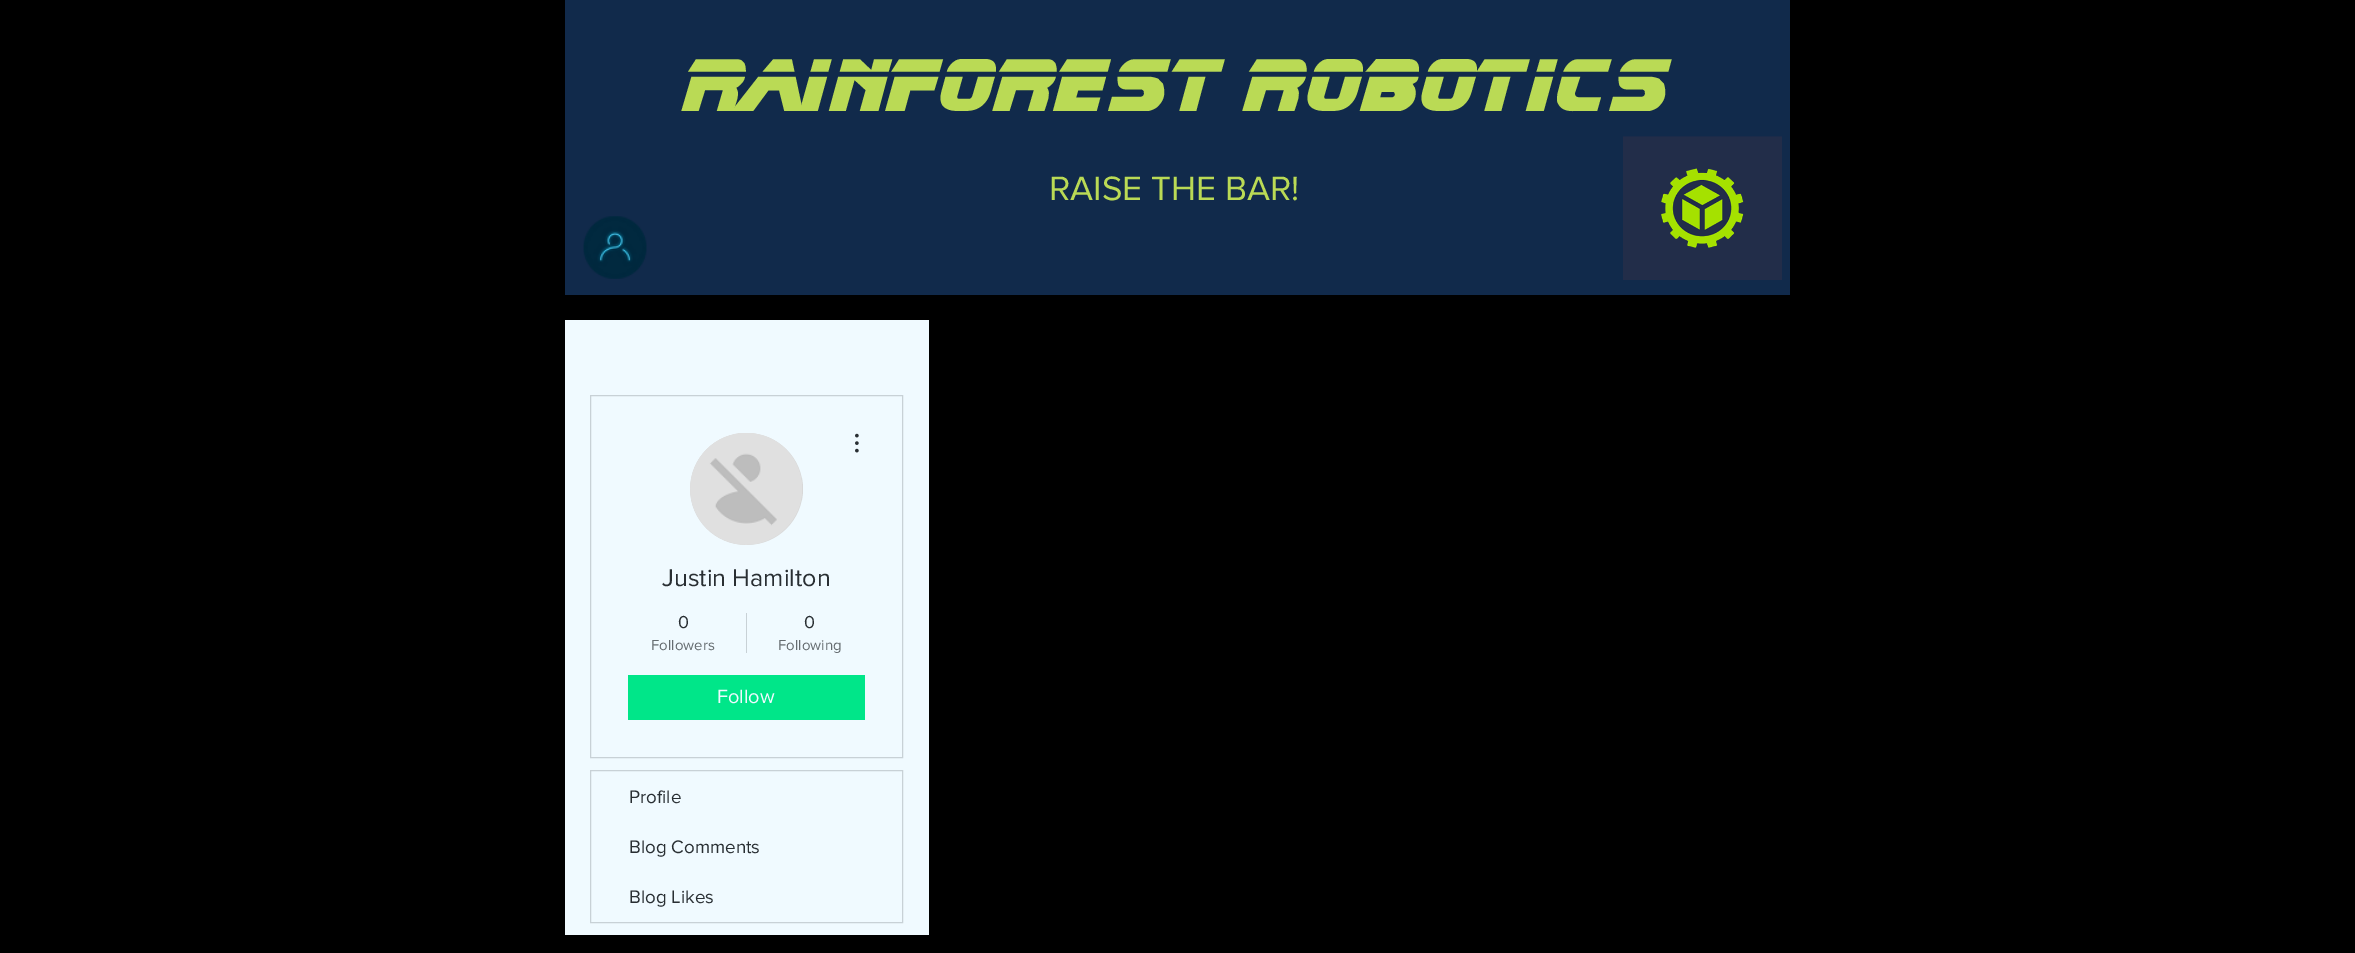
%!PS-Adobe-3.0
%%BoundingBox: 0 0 2355 953
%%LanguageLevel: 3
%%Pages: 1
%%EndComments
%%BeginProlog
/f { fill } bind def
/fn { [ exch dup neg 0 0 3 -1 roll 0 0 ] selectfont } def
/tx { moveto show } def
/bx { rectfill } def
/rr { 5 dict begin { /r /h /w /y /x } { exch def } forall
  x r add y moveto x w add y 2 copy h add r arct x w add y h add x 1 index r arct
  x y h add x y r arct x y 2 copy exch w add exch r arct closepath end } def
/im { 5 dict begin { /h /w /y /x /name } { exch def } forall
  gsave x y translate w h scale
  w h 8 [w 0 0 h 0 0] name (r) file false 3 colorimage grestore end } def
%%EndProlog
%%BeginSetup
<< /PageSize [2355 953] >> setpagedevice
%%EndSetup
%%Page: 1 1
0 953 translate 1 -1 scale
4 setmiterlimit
0 setgray
0 0 2355 953 bx
0.067 0.165 0.294 setrgbcolor
565 0 1225 295 bx
/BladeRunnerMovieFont-BoldItalic 75 fn
0.729 0.855 0.333 setrgbcolor
(Rainforest robotics) 683 111 tx
/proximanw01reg-Regular 35 fn
(RAISE THE BAR!) 1049 200 tx
(image0.raw) 1623 136 159 144 im
(image1.raw) 583 216 64 63 im
0.941 0.98 1 setrgbcolor
565 320 364 615 bx
0.784 0.82 0.839 setrgbcolor
590.5 395.5 312 362 rectstroke
0.847 setgray
690 433 113 112 56 rr f
(image2.raw) 690 433 112 112 im
(image3.raw) 855 433 4 20 im
/proximanw01reg-Regular 25 fn
0.161 0.184 0.2 setrgbcolor
(Justin Hamilton) 662 586 tx
/proximanw01reg-Regular 18 fn
(0) 678 628 tx
/proximanw01reg-Regular 15 fn
0.396 0.424 0.439 setrgbcolor
(Followers) 651 650 tx
0.784 0.82 0.839 setrgbcolor
746 613 1 40 bx
/proximanw01reg-Regular 18 fn
0.161 0.184 0.2 setrgbcolor
(0) 804 628 tx
/proximanw01reg-Regular 15 fn
0.396 0.424 0.439 setrgbcolor
(Following) 778 650 tx
0 0.902 0.537 setrgbcolor
628 675 237 45 bx
/proximanw01reg-Regular 20 fn
0.941 0.98 1 setrgbcolor
(Follow) 717 703 tx
0.784 0.82 0.839 setrgbcolor
590.5 770.5 312 152 rectstroke
/proximanw01reg-Regular 18.75 fn
0.161 0.184 0.2 setrgbcolor
(Profile) 629 803 tx
(Blog Comments) 629 853 tx
(Blog Likes) 629 903 tx
showpage
%%EOF
